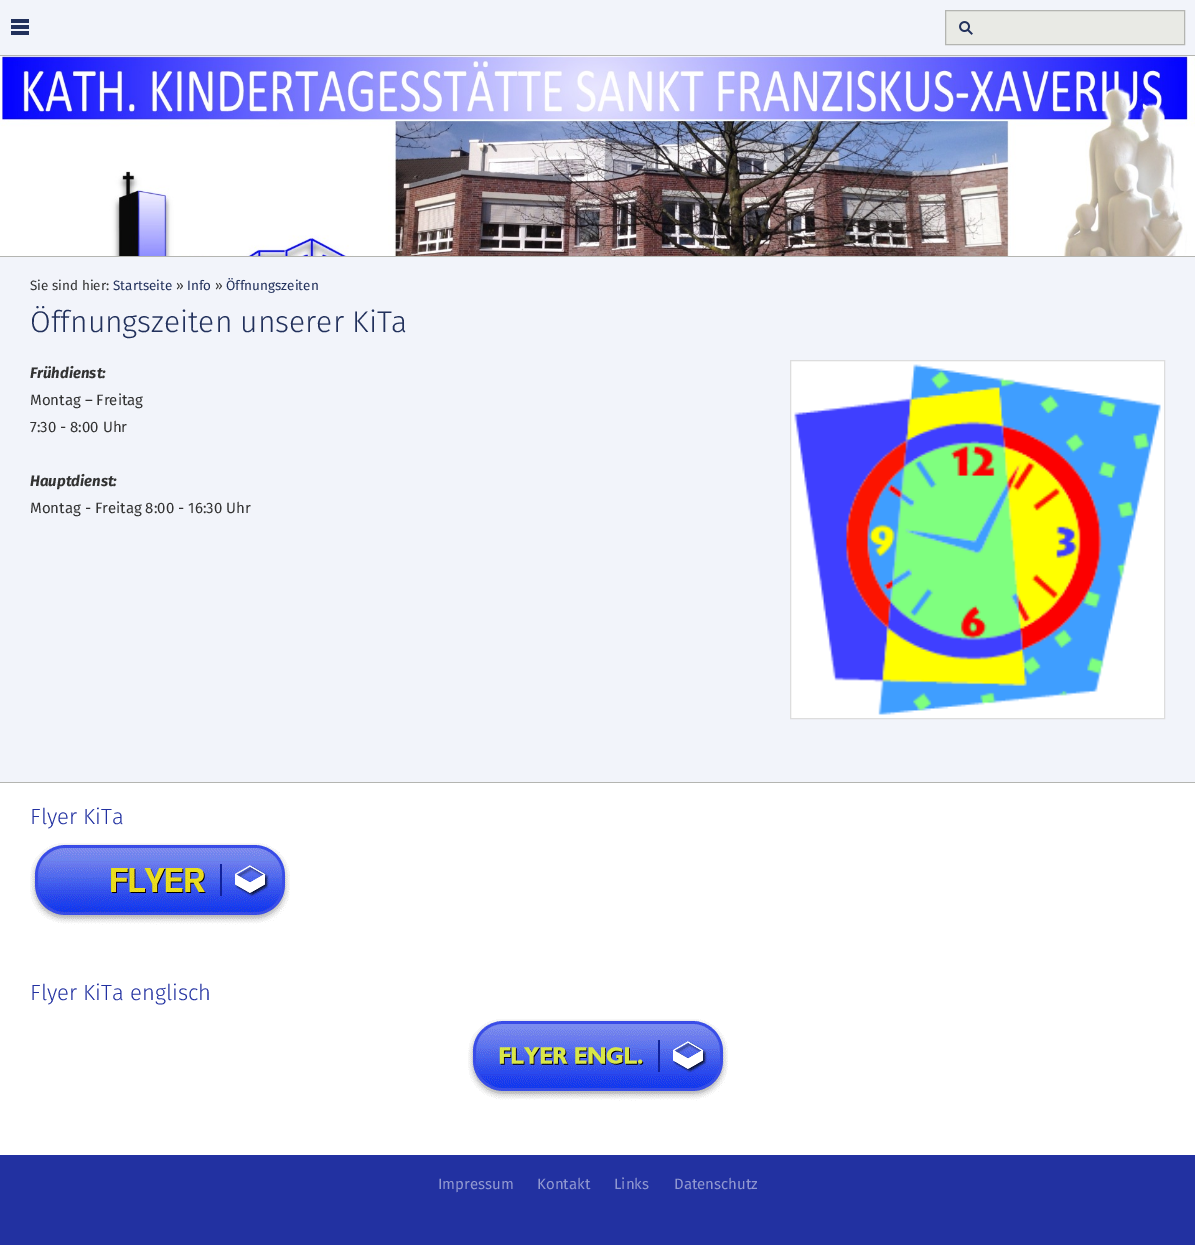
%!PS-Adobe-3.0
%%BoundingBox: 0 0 1195 1245
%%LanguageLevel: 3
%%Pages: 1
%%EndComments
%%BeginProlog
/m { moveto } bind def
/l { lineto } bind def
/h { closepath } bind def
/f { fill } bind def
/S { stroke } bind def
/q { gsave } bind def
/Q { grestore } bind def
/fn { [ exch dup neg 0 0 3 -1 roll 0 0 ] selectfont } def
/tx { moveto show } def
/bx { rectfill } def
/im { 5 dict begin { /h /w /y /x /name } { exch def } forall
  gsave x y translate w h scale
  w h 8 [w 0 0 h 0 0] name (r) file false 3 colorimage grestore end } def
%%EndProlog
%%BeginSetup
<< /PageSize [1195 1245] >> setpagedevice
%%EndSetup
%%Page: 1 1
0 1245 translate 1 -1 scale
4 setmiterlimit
0.133 0.192 0.631 setrgbcolor
0 0 1195 1245 bx
0.949 0.957 0.98 setrgbcolor
0 0 1195 55 bx
(image0.raw) 11 19 18 16 im
0.914 0.918 0.898 setrgbcolor
946 11 238 33 bx
(image1.raw) 959 21 14 14 im
0.706 0.71 0.694 setrgbcolor
945.5 10.5 239 34 rectstroke
0 55 1195 1 bx
0 256 1195 1 bx
(image2.raw) 0 56 1195 200 im
0.949 0.957 0.98 setrgbcolor
0 257 1195 525 bx
/FiraSans-Regular 13.5 fn
0.2 setgray
(Sie sind hier:) 30 290 tx
0.133 0.192 0.361 setrgbcolor
(Startseite) 113 290 tx
0.2 setgray
(») 176 290 tx
0.133 0.192 0.361 setrgbcolor
(Info) 187 290 tx
0.2 setgray
(») 215 290 tx
0.133 0.192 0.361 setrgbcolor
(Öffnungszeiten) 226 290 tx
/FiraSans-Light 30 fn
(Öffnungszeiten unserer KiTa) 30 332 tx
/FiraSans-BoldItalic 15 fn
0.2 setgray
(Frühdienst:) 30 378 tx
/FiraSans-Regular 15 fn
(Montag – Freitag) 30 405 tx
(7:30 - 8:00 Uhr) 30 432 tx
/FiraSans-BoldItalic 15 fn
(Hauptdienst:) 30 486 tx
/FiraSans-Regular 15 fn
(Montag - Freitag 8:00 - 16:30 Uhr) 30 513 tx
1 setgray
790.5 360.5 m 1164.5 360.5 l 1164.5 718.5 l 790.5 718.5 l h q f Q
0.867 setgray
S
(image3.raw) 794 364 367 351 im
1 setgray
0 783 1195 372 bx
0.706 0.71 0.694 setrgbcolor
0 782 1195 1 bx
/FiraSans-Light 22 fn
0.133 0.192 0.631 setrgbcolor
(Flyer KiTa) 30 824 tx
(image4.raw) 30 843 260 82 im
(Flyer KiTa englisch) 30 1000 tx
(image5.raw) 468 1019 260 82 im
/FiraSans-Regular 15 fn
0.569 0.596 0.816 setrgbcolor
(Impressum) 438 1189 tx
(Kontakt) 537 1189 tx
(Links) 614 1189 tx
(Datenschutz) 674 1189 tx
showpage
%%EOF
